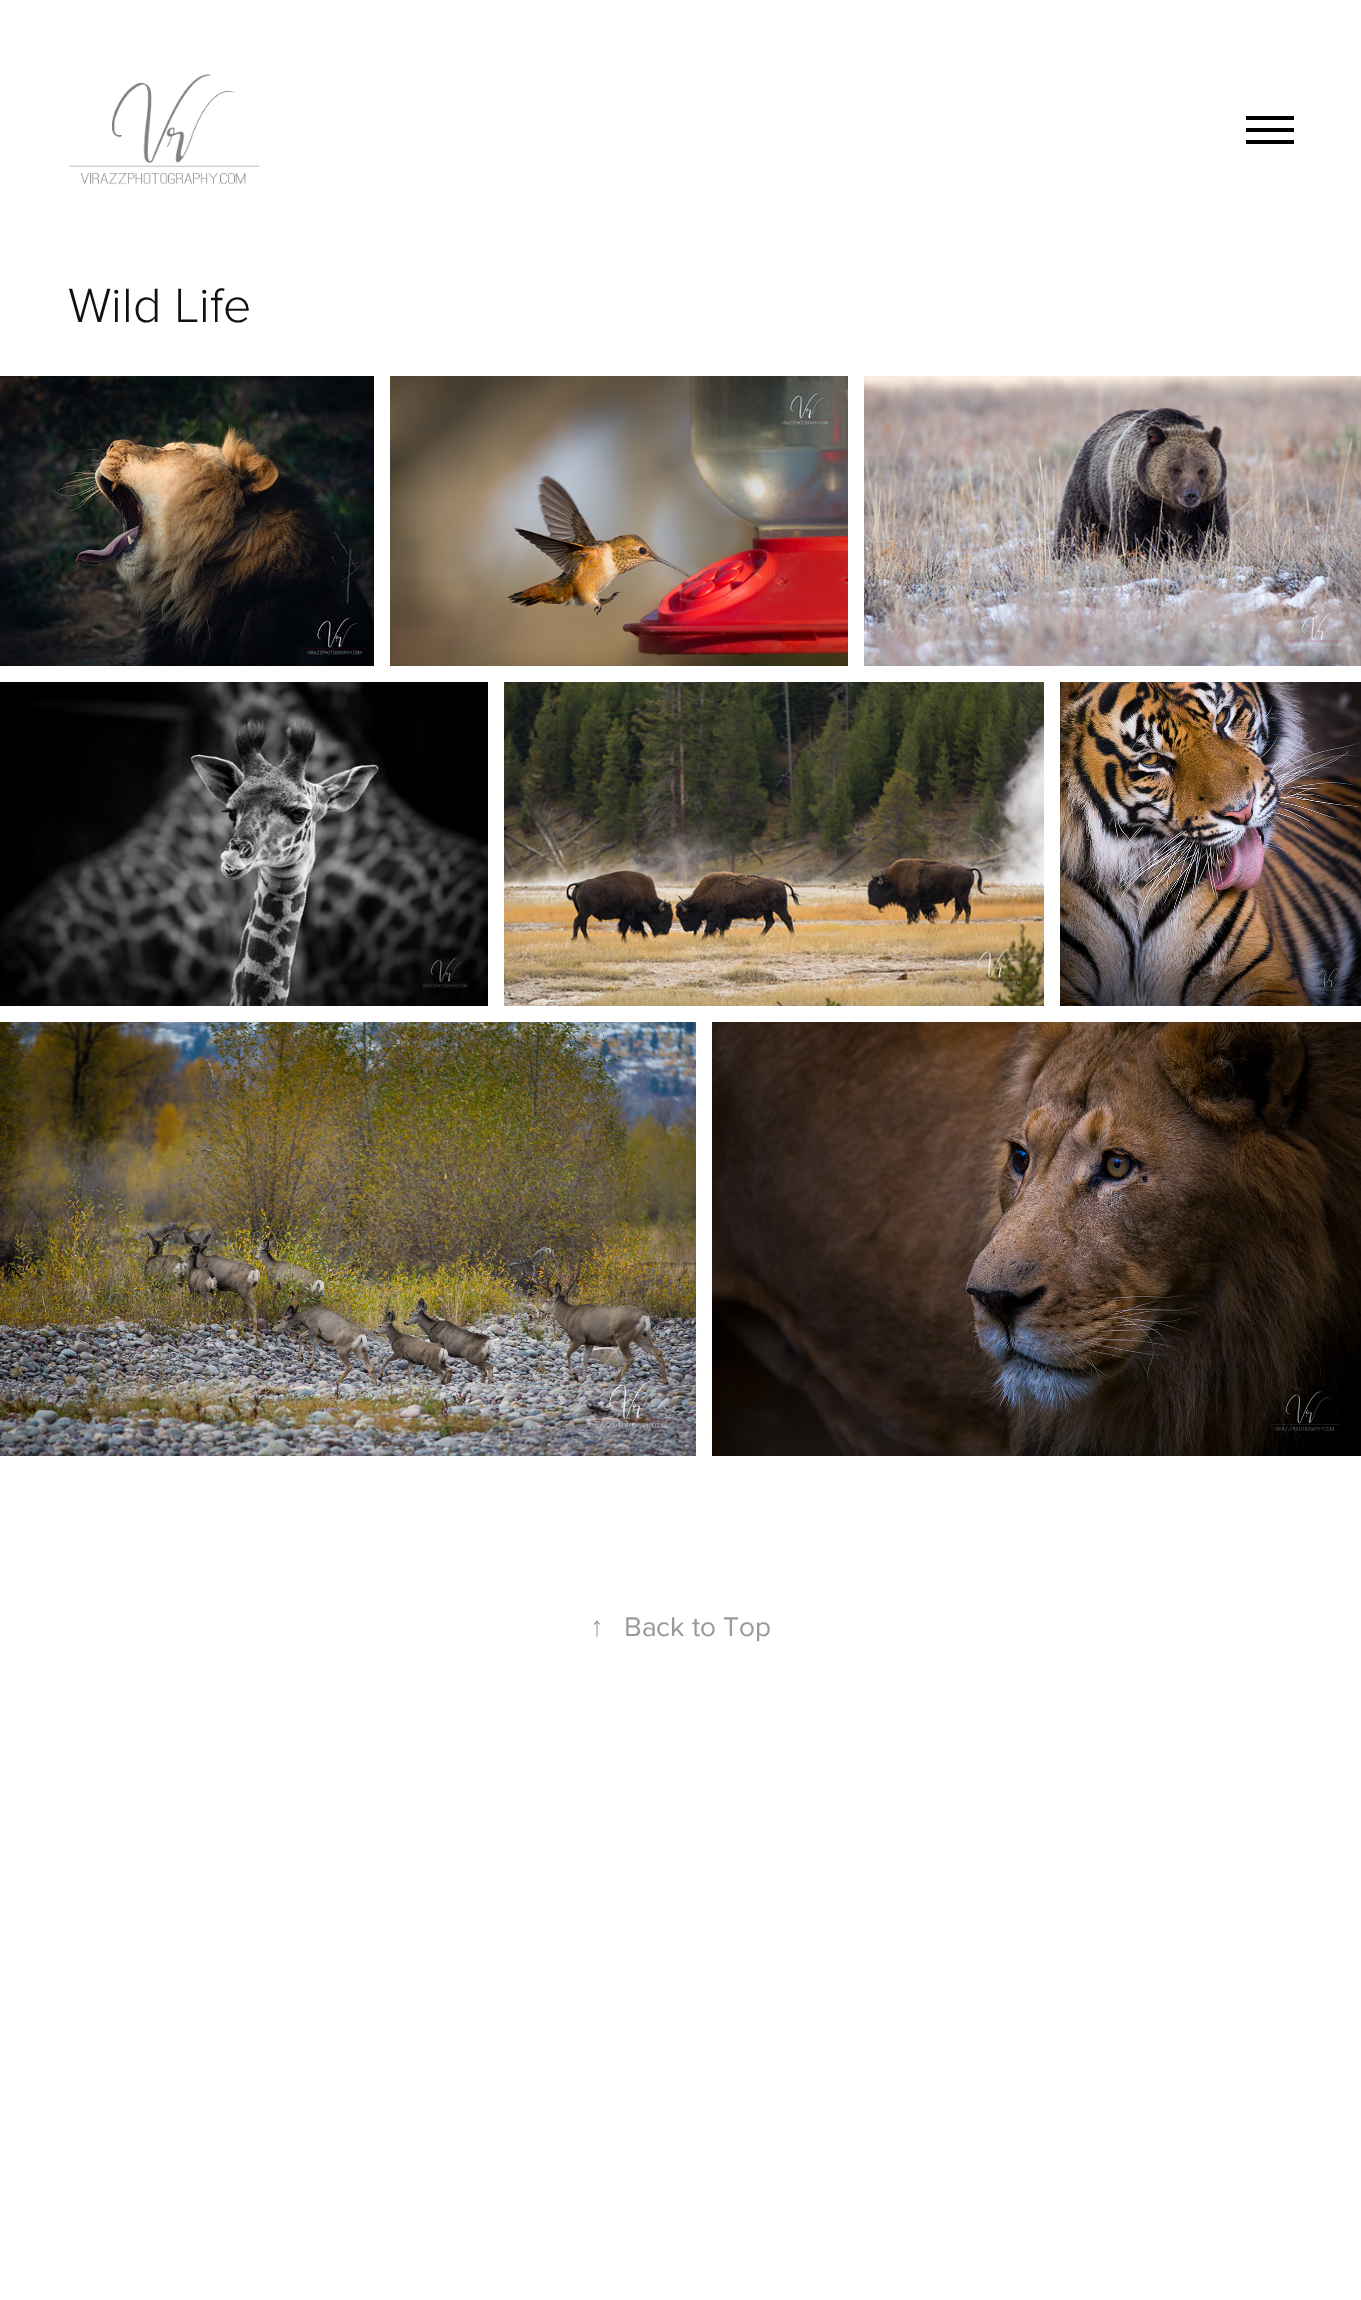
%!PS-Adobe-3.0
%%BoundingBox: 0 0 1361 2300
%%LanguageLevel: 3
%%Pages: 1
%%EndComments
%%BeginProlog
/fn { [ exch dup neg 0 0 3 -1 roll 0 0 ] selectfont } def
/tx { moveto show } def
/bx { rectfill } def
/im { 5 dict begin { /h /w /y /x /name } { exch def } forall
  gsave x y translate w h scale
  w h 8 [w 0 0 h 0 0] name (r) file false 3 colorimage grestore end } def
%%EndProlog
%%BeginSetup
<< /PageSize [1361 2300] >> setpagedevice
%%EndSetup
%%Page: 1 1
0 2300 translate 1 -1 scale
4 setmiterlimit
1 setgray
0 0 1361 2300 bx
(image0.raw) 69 74 191 111 im
0 setgray
1246 116 48 4 bx
1246 128 48 4 bx
1246 140 48 4 bx
/ProximaNova-Light 50 fn
0.067 setgray
(Wild Life) 68 322 tx
(image1.raw) 0 376 374 290 im
(image2.raw) 390 376 458 290 im
(image3.raw) 864 376 497 290 im
(image4.raw) 0 682 488 324 im
(image5.raw) 504 682 540 324 im
(image6.raw) 1060 682 301 324 im
(image7.raw) 0 1022 696 434 im
(image8.raw) 712 1022 649 434 im
/LiberationSerif-Regular 28 fn
0.6 setgray
(↑) 590 1636 tx
/ProximaNova-Regular 28 fn
(Back to Top) 624 1636 tx
showpage
%%EOF
